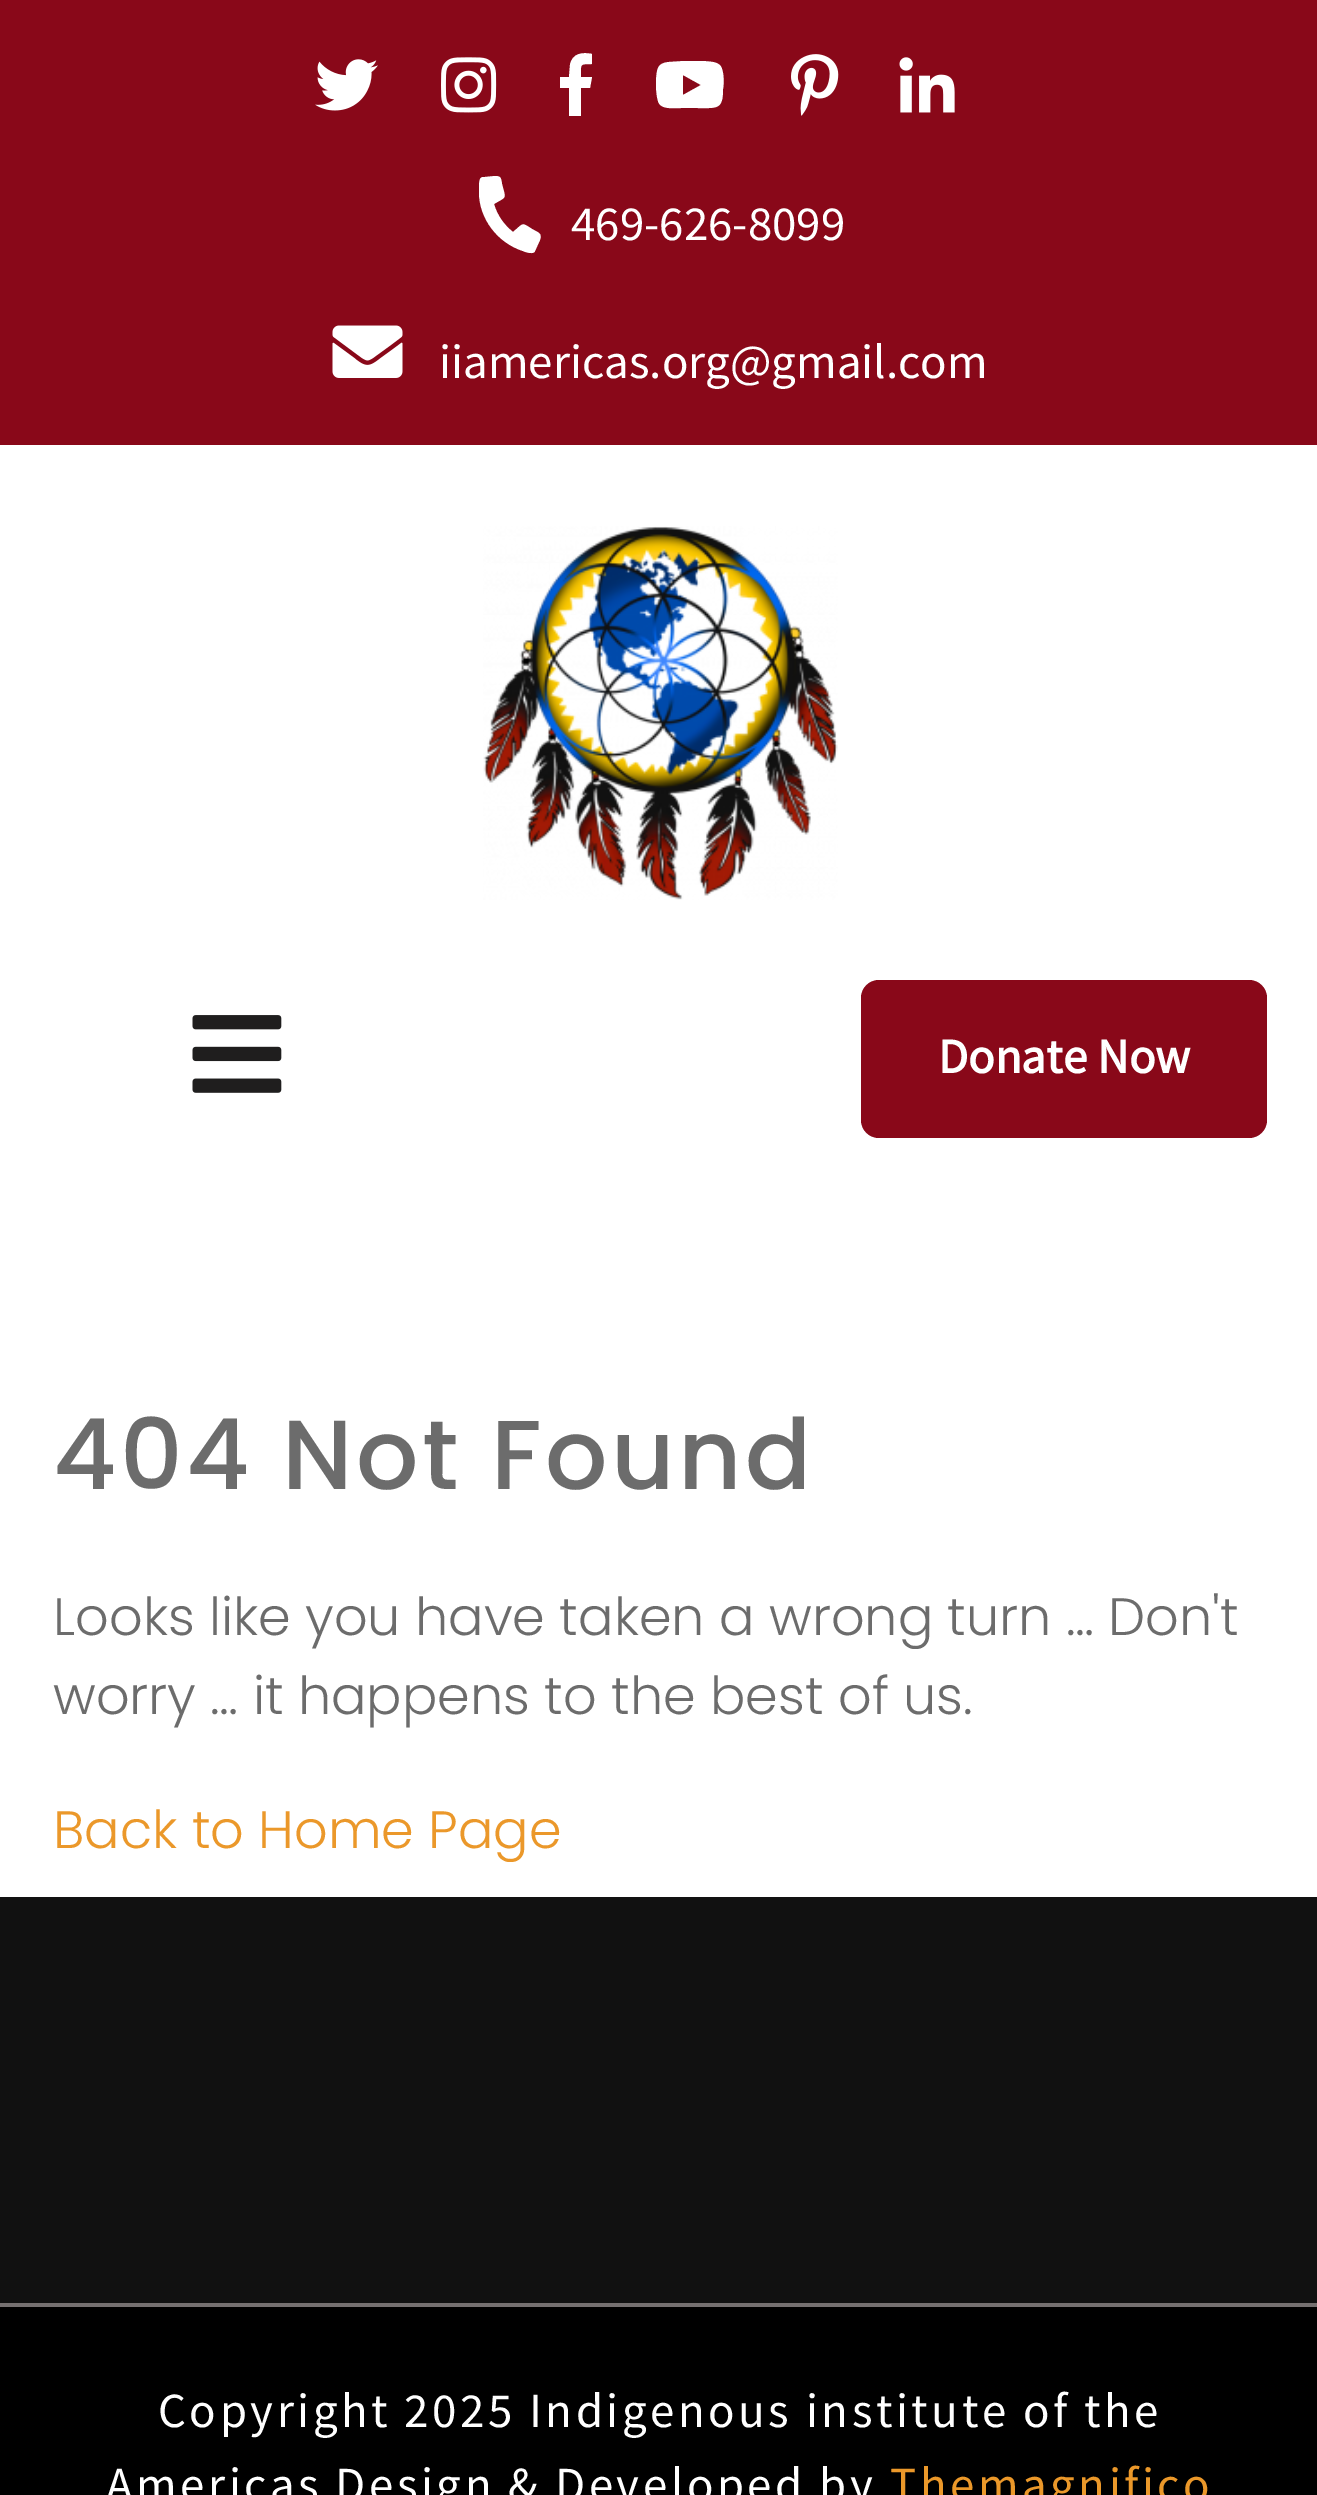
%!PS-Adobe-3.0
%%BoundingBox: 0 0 1317 2495
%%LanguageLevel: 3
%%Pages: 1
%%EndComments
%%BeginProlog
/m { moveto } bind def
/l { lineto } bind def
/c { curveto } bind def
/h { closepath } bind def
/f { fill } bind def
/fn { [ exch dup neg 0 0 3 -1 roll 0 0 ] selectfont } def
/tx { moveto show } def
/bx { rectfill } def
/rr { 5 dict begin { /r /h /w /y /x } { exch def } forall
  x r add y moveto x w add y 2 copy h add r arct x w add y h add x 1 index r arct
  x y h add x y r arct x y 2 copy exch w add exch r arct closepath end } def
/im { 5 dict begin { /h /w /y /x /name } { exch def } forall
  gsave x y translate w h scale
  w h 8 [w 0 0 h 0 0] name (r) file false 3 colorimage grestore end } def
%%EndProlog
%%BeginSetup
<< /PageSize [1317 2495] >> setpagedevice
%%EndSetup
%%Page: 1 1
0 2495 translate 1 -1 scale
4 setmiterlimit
1 setgray
0 0 1317 2495 bx
0.537 0.031 0.098 setrgbcolor
0 0 1317 445 bx
(image0.raw) 315 59 63 52 im
(image1.raw) 441 57 56 56 im
1 setgray
569 116 m 569 88 l 560 88 l 560 77 l 569 77 l 570 65 l 572 53 583 52 592 54 c 592 64 l 579 64 581 64 581 77 c 592 77 l 590 88 l 581 88 l 581 116 l h f
722 69 m 720 61 710 62 704 61 c 684 61 l 669 62 l 657 63 657 69 656 80 c 656 87 656 94 658 101 c 660 110 674 108 681 108 c 697 108 l 717 108 723 110 723 89 c 724 83 724 75 722 69 c h 683 95 m 683 75 l 701 85 l h f
(image2.raw) 791 54 48 62 im
(image3.raw) 899 57 56 56 im
535 251 m 540 240 l 542 233 539 233 532 229 c 521 222 524 223 513 232 c 504 225 497 215 494 204 c 507 196 506 200 502 184 c 501 178 501 176 495 176 c 485 177 l 480 177 480 178 479 184 c 479 192 l 479 219 498 243 523 251 c 525 252 534 255 535 251 c h f
/SourceSansPro-Regular 49 fn
(469-626-8099) 571 240 tx
(image4.raw) 332 325 71 53 im
(iiamericas.org@gmail.com) 439 378 tx
(image5.raw) 483 526 355 374 im
(image6.raw) 192 1015 90 78 im
0.537 0.031 0.098 setrgbcolor
861 980 406 158 18 rr f
/SourceSansPro-Bold 49 fn
1 setgray
(Donate Now) 938 1073 tx
/Poppins-Medium 98 fn
0.424 setgray
53 1489 m 3.5 0 (404 Not Found) ashow
/Poppins-Light 52.5 fn
(Looks like you have taken a wrong turn … Don't) 53 1635 tx
(worry … it happens to the best of us.) 53 1714 tx
0.922 0.596 0.165 setrgbcolor
(Back to Home Page) 53 1848 tx
0.067 setgray
0 1897 1317 406 bx
0 setgray
0 2307 1317 188 bx
0.459 0.439 0.439 setrgbcolor
0 2303 1317 4 bx
/SourceSansPro-Regular 49 fn
1 setgray
158 2427 m 3.5 0 (Copyright 2025 Indigenous institute of the) ashow
106 2501 m 3.5 0 (Americas Design & Developed by) ashow
0.922 0.596 0.165 setrgbcolor
890 2501 m 3.5 0 (Themagnifico) ashow
showpage
%%EOF
